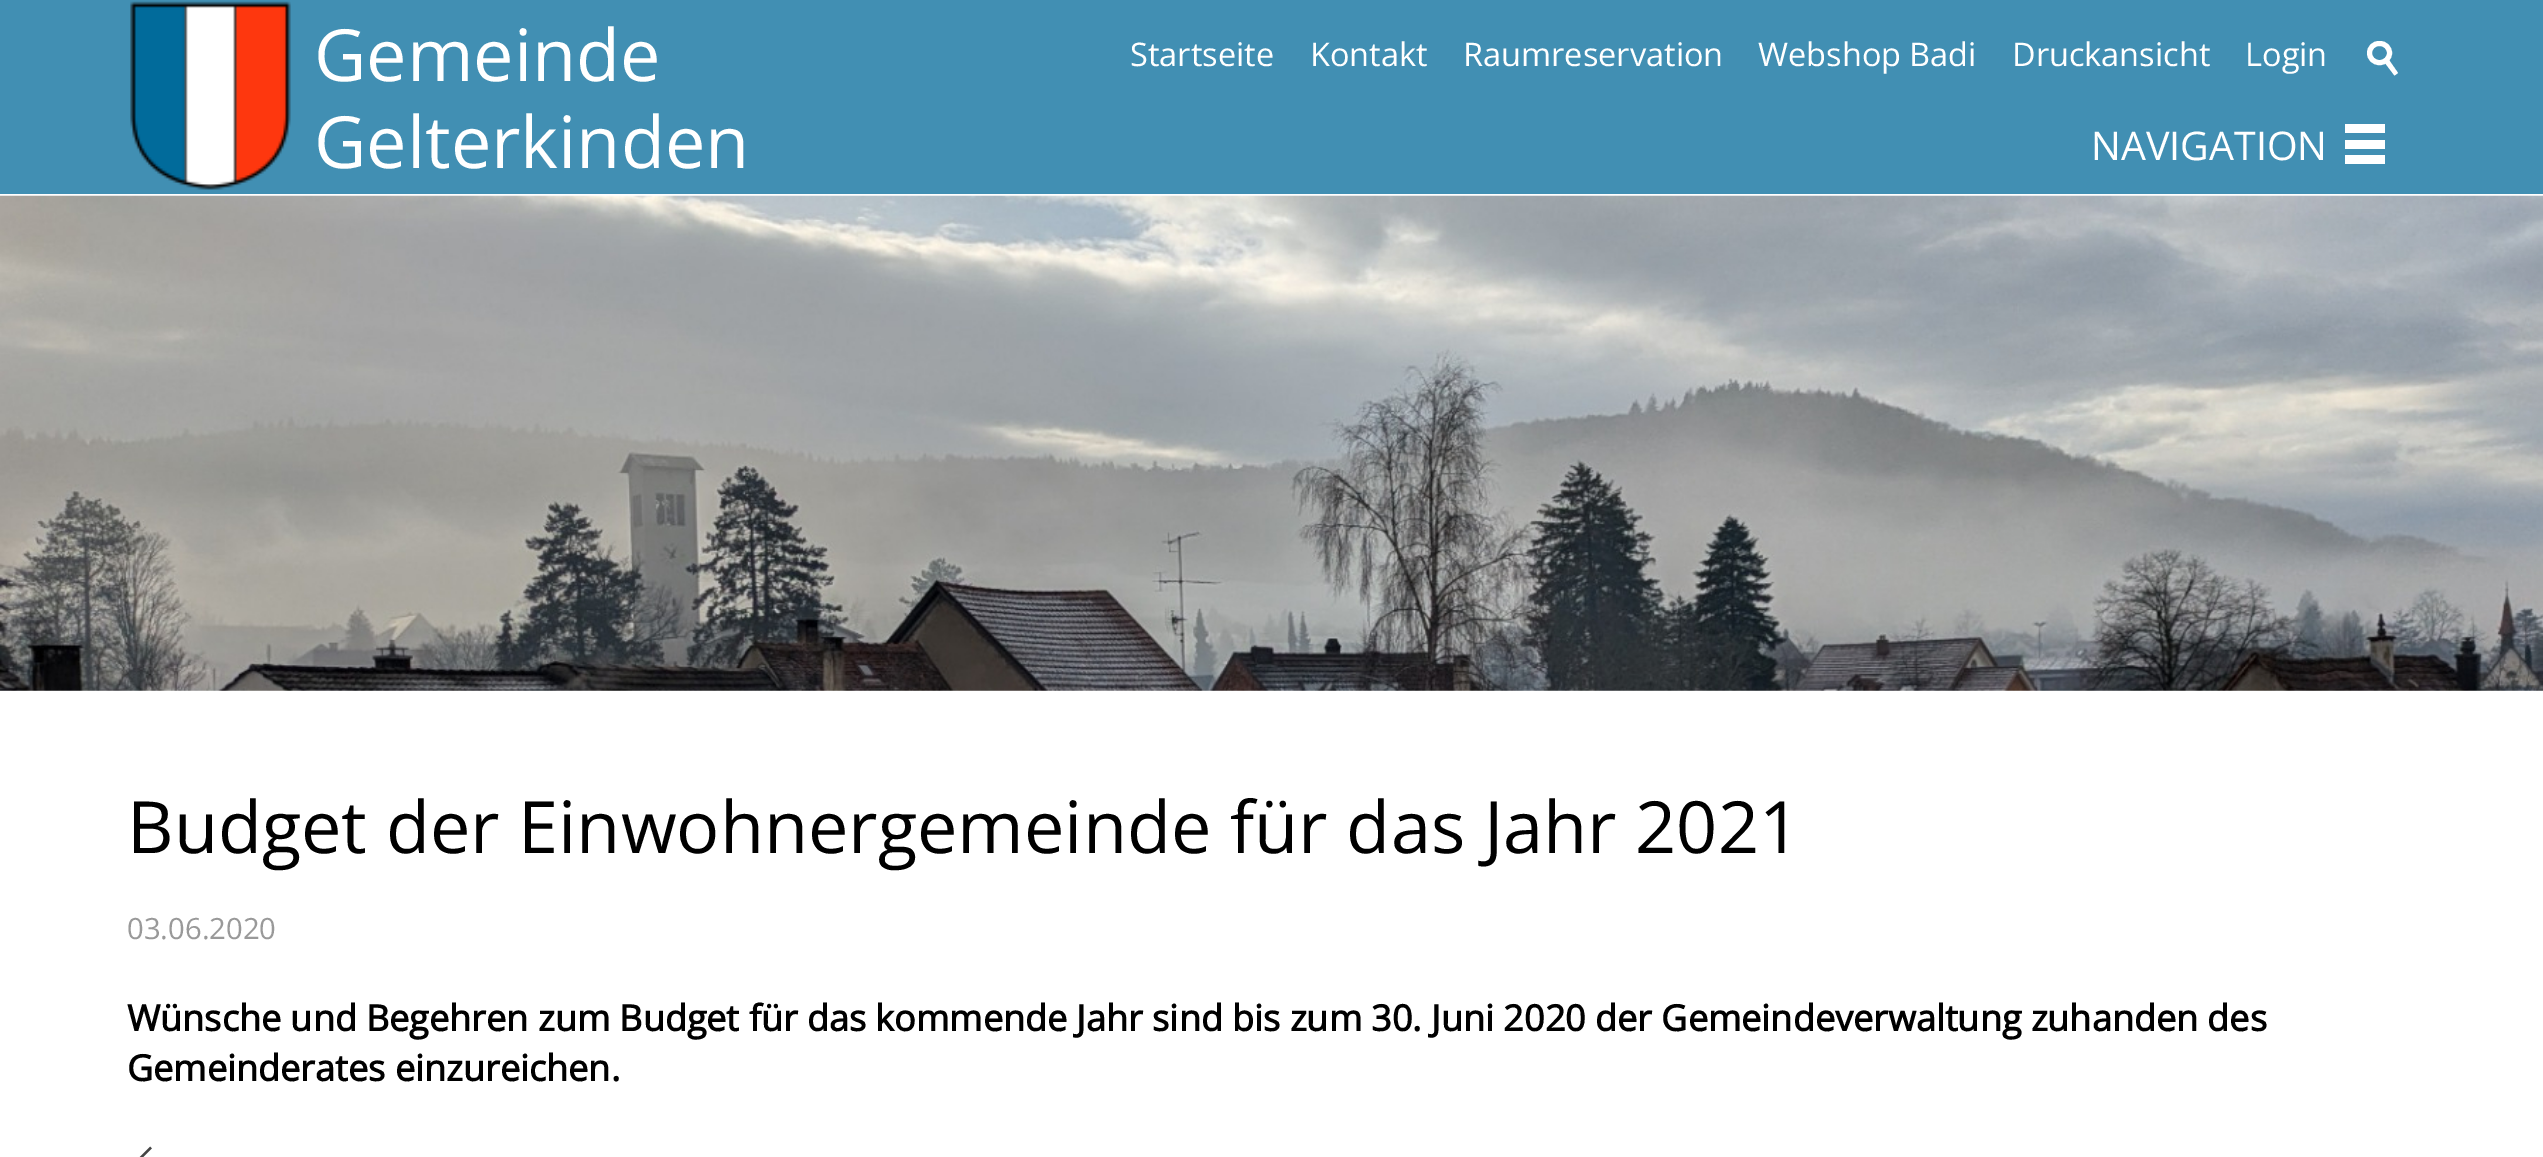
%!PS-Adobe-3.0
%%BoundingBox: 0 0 2543 1157
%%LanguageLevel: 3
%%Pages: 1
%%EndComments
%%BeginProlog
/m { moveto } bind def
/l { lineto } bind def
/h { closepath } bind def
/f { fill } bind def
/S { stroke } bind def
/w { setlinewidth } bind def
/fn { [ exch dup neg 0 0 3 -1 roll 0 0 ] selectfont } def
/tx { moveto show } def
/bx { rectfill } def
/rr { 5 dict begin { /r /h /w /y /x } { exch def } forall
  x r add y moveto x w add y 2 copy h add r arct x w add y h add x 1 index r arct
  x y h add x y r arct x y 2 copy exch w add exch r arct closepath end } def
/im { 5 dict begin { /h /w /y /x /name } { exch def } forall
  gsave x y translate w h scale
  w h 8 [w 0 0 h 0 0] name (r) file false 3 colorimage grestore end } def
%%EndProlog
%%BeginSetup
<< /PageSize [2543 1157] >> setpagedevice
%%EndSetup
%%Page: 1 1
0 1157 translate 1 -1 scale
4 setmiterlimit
1 setgray
0 0 2543 1157 bx
0.255 0.561 0.702 setrgbcolor
0 0 2543 194 bx
(image0.raw) 130 1 161 189 im
/OpenSans-Regular 72 fn
1 setgray
(Gemeinde) 314 81 tx
(Gelterkinden) 314 168 tx
/OpenSans-Regular 32.5 fn
(Startseite) 1130 66 tx
(Kontakt) 1310 66 tx
(Raumreservation) 1463 66 tx
(Webshop Badi) 1758 66 tx
(Druckansicht) 2012 66 tx
(Login) 2245 66 tx
5 w
2369.5 43.5 20 19 9.5 rr S
2389 60 m 2398 73 l 2394.5 75.5 l 2385 63 l h f
/OpenSans-Regular 39.5 fn
(NAVIGATION) 2091 160 tx
2345 124 40 9 bx
2345 140 40 9 bx
2345 155 40 9 bx
(image1.raw) 0 195 2543 496 im
/OpenSans-Regular 72 fn
0 setgray
(Budget der Einwohnergemeinde für das Jahr 2021) 127 853 tx
/OpenSans-Regular 29.25 fn
0.6 setgray
(03.06.2020) 127 939 tx
/OpenSans-Bold 36 fn
0 setgray
(Wünsche und Begehren zum Budget für das kommende Jahr sind bis zum 30. Juni 2020 der Gemeindeverwaltung zuhanden des) 127 1031 tx
(Gemeinderates einzureichen.) 127 1081 tx
0.267 setgray
2.2 w
151 1147.5 m 139.5 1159 l 151 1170 l S
showpage
%%EOF
